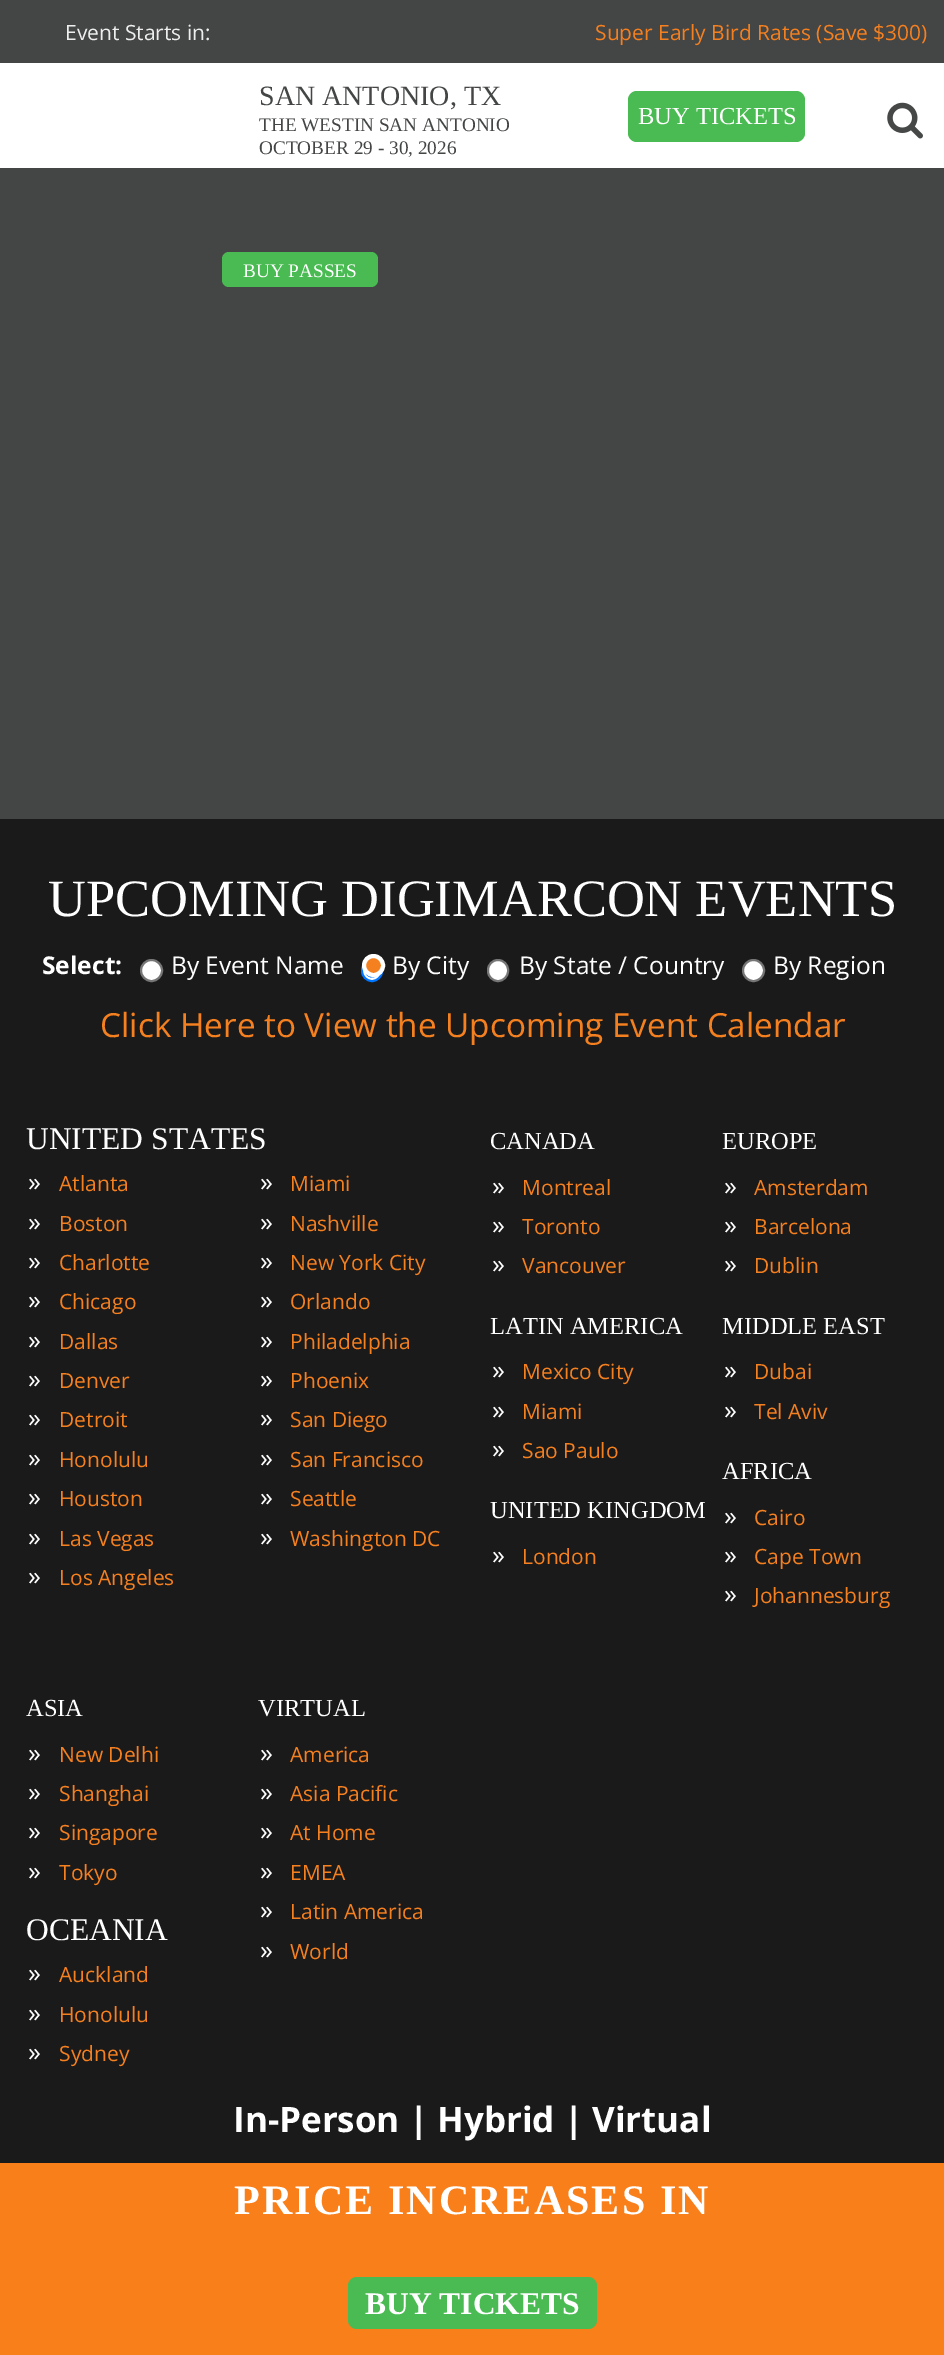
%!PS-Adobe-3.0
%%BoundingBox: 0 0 944 2355
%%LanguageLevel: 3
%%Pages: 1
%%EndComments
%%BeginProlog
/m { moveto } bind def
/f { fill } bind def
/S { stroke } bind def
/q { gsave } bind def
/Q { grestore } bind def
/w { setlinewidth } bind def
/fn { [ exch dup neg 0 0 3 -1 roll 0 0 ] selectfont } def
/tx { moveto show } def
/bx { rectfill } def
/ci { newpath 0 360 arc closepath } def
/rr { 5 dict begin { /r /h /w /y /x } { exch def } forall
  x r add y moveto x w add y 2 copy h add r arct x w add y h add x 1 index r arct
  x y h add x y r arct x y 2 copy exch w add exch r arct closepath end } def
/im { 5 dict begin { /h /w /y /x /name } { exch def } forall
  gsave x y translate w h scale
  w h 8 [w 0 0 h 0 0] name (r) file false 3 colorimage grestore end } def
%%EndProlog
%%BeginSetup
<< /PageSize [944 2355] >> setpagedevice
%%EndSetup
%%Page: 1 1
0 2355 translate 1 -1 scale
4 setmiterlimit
0.267 0.271 0.271 setrgbcolor
0 0 944 2355 bx
/OpenSans-Regular 21 fn
0.933 setgray
(Event Starts in:) 65 40 tx
0.961 0.502 0.125 setrgbcolor
(Super Early Bird Rates \(Save $300\)) 595 40 tx
1 setgray
0 63 944 105 bx
/LiberationSerif-Regular 28 fn
0.267 0.271 0.271 setrgbcolor
(SAN ANTONIO, TX) 259 105 tx
/LiberationSerif-Regular 19.25 fn
(THE WESTIN SAN ANTONIO) 259 131 tx
(OCTOBER 29 - 30, 2026) 259 154 tx
0.286 0.733 0.322 setrgbcolor
628 91 177 51 9 rr f
/LiberationSerif-Regular 24.5 fn
1 setgray
(BUY TICKETS) 638 124 tx
(image0.raw) 887 102 36 37 im
0.286 0.733 0.322 setrgbcolor
222 252 156 35 7 rr f
/LiberationSerif-Regular 19.25 fn
1 setgray
(BUY PASSES) 243 277 tx
0.102 setgray
0 819 944 1344 bx
/LiberationSerif-Regular 52.5 fn
1 setgray
(UPCOMING DIGIMARCON EVENTS) 48 916 tx
/OpenSans-Bold 24.5 fn
(Select:) 42 974 tx
151.5 970.5 10.5 ci q f Q
0.463 setgray
2 w
S
/OpenSans-Regular 24.5 fn
1 setgray
(By Event Name) 171 974 tx
362 960 20 21 10 rr q f Q
0 0.459 1 setrgbcolor
S
372 970.5 7 ci f
0.961 0.502 0.125 setrgbcolor
373.5 965.5 9.5 ci q f Q
1 setgray
4 w
S
(By City) 392 974 tx
488 960 20 21 10 rr q f Q
0.463 setgray
2 w
S
1 setgray
(By State / Country) 519 974 tx
753.5 970.5 10.5 ci q f Q
0.463 setgray
S
1 setgray
(By Region) 773 974 tx
/OpenSans-Regular 33.25 fn
0.961 0.502 0.125 setrgbcolor
(Click Here to View the Upcoming Event Calendar) 100 1037 tx
/LiberationSerif-Regular 31.5 fn
1 setgray
(UNITED STATES) 26 1149 tx
/OpenSans-Regular 26 fn
(») 28 1191 tx
/OpenSans-Regular 21 fn
0.961 0.502 0.125 setrgbcolor
(Atlanta) 59 1191 tx
/OpenSans-Regular 26 fn
1 setgray
(») 28 1231 tx
/OpenSans-Regular 21 fn
0.961 0.502 0.125 setrgbcolor
(Boston) 59 1231 tx
/OpenSans-Regular 26 fn
1 setgray
(») 28 1270 tx
/OpenSans-Regular 21 fn
0.961 0.502 0.125 setrgbcolor
(Charlotte) 59 1270 tx
/OpenSans-Regular 26 fn
1 setgray
(») 28 1309 tx
/OpenSans-Regular 21 fn
0.961 0.502 0.125 setrgbcolor
(Chicago) 59 1309 tx
/OpenSans-Regular 26 fn
1 setgray
(») 28 1349 tx
/OpenSans-Regular 21 fn
0.961 0.502 0.125 setrgbcolor
(Dallas) 59 1349 tx
/OpenSans-Regular 26 fn
1 setgray
(») 28 1388 tx
/OpenSans-Regular 21 fn
0.961 0.502 0.125 setrgbcolor
(Denver) 59 1388 tx
/OpenSans-Regular 26 fn
1 setgray
(») 28 1427 tx
/OpenSans-Regular 21 fn
0.961 0.502 0.125 setrgbcolor
(Detroit) 59 1427 tx
/OpenSans-Regular 26 fn
1 setgray
(») 28 1467 tx
/OpenSans-Regular 21 fn
0.961 0.502 0.125 setrgbcolor
(Honolulu) 59 1467 tx
/OpenSans-Regular 26 fn
1 setgray
(») 28 1506 tx
/OpenSans-Regular 21 fn
0.961 0.502 0.125 setrgbcolor
(Houston) 59 1506 tx
/OpenSans-Regular 26 fn
1 setgray
(») 28 1546 tx
/OpenSans-Regular 21 fn
0.961 0.502 0.125 setrgbcolor
(Las Vegas) 59 1546 tx
/OpenSans-Regular 26 fn
1 setgray
(») 28 1585 tx
/OpenSans-Regular 21 fn
0.961 0.502 0.125 setrgbcolor
(Los Angeles) 59 1585 tx
/OpenSans-Regular 26 fn
1 setgray
(») 260 1191 tx
/OpenSans-Regular 21 fn
0.961 0.502 0.125 setrgbcolor
(Miami) 290 1191 tx
/OpenSans-Regular 26 fn
1 setgray
(») 260 1231 tx
/OpenSans-Regular 21 fn
0.961 0.502 0.125 setrgbcolor
(Nashville) 290 1231 tx
/OpenSans-Regular 26 fn
1 setgray
(») 260 1270 tx
/OpenSans-Regular 21 fn
0.961 0.502 0.125 setrgbcolor
(New York City) 290 1270 tx
/OpenSans-Regular 26 fn
1 setgray
(») 260 1309 tx
/OpenSans-Regular 21 fn
0.961 0.502 0.125 setrgbcolor
(Orlando) 290 1309 tx
/OpenSans-Regular 26 fn
1 setgray
(») 260 1349 tx
/OpenSans-Regular 21 fn
0.961 0.502 0.125 setrgbcolor
(Philadelphia) 290 1349 tx
/OpenSans-Regular 26 fn
1 setgray
(») 260 1388 tx
/OpenSans-Regular 21 fn
0.961 0.502 0.125 setrgbcolor
(Phoenix) 290 1388 tx
/OpenSans-Regular 26 fn
1 setgray
(») 260 1427 tx
/OpenSans-Regular 21 fn
0.961 0.502 0.125 setrgbcolor
(San Diego) 290 1427 tx
/OpenSans-Regular 26 fn
1 setgray
(») 260 1467 tx
/OpenSans-Regular 21 fn
0.961 0.502 0.125 setrgbcolor
(San Francisco) 290 1467 tx
/OpenSans-Regular 26 fn
1 setgray
(») 260 1506 tx
/OpenSans-Regular 21 fn
0.961 0.502 0.125 setrgbcolor
(Seattle) 290 1506 tx
/OpenSans-Regular 26 fn
1 setgray
(») 260 1546 tx
/OpenSans-Regular 21 fn
0.961 0.502 0.125 setrgbcolor
(Washington DC) 290 1546 tx
/LiberationSerif-Regular 24.5 fn
1 setgray
(CANADA) 490 1149 tx
/OpenSans-Regular 26 fn
(») 492 1195 tx
/OpenSans-Regular 21 fn
0.961 0.502 0.125 setrgbcolor
(Montreal) 522 1195 tx
/OpenSans-Regular 26 fn
1 setgray
(») 492 1234 tx
/OpenSans-Regular 21 fn
0.961 0.502 0.125 setrgbcolor
(Toronto) 522 1234 tx
/OpenSans-Regular 26 fn
1 setgray
(») 492 1273 tx
/OpenSans-Regular 21 fn
0.961 0.502 0.125 setrgbcolor
(Vancouver) 522 1273 tx
/LiberationSerif-Regular 24.5 fn
1 setgray
(LATIN AMERICA) 490 1334 tx
/OpenSans-Regular 26 fn
(») 492 1379 tx
/OpenSans-Regular 21 fn
0.961 0.502 0.125 setrgbcolor
(Mexico City) 522 1379 tx
/OpenSans-Regular 26 fn
1 setgray
(») 492 1419 tx
/OpenSans-Regular 21 fn
0.961 0.502 0.125 setrgbcolor
(Miami) 522 1419 tx
/OpenSans-Regular 26 fn
1 setgray
(») 492 1458 tx
/OpenSans-Regular 21 fn
0.961 0.502 0.125 setrgbcolor
(Sao Paulo) 522 1458 tx
/LiberationSerif-Regular 24.5 fn
1 setgray
(UNITED KINGDOM) 490 1518 tx
/OpenSans-Regular 26 fn
(») 492 1564 tx
/OpenSans-Regular 21 fn
0.961 0.502 0.125 setrgbcolor
(London) 522 1564 tx
/LiberationSerif-Regular 24.5 fn
1 setgray
(EUROPE) 722 1149 tx
/OpenSans-Regular 26 fn
(») 724 1195 tx
/OpenSans-Regular 21 fn
0.961 0.502 0.125 setrgbcolor
(Amsterdam) 754 1195 tx
/OpenSans-Regular 26 fn
1 setgray
(») 724 1234 tx
/OpenSans-Regular 21 fn
0.961 0.502 0.125 setrgbcolor
(Barcelona) 754 1234 tx
/OpenSans-Regular 26 fn
1 setgray
(») 724 1273 tx
/OpenSans-Regular 21 fn
0.961 0.502 0.125 setrgbcolor
(Dublin) 754 1273 tx
/LiberationSerif-Regular 24.5 fn
1 setgray
(MIDDLE EAST) 722 1334 tx
/OpenSans-Regular 26 fn
(») 724 1379 tx
/OpenSans-Regular 21 fn
0.961 0.502 0.125 setrgbcolor
(Dubai) 754 1379 tx
/OpenSans-Regular 26 fn
1 setgray
(») 724 1419 tx
/OpenSans-Regular 21 fn
0.961 0.502 0.125 setrgbcolor
(Tel Aviv) 754 1419 tx
/LiberationSerif-Regular 24.5 fn
1 setgray
(AFRICA) 722 1479 tx
/OpenSans-Regular 26 fn
(») 724 1525 tx
/OpenSans-Regular 21 fn
0.961 0.502 0.125 setrgbcolor
(Cairo) 754 1525 tx
/OpenSans-Regular 26 fn
1 setgray
(») 724 1564 tx
/OpenSans-Regular 21 fn
0.961 0.502 0.125 setrgbcolor
(Cape Town) 754 1564 tx
/OpenSans-Regular 26 fn
1 setgray
(») 724 1603 tx
/OpenSans-Regular 21 fn
0.961 0.502 0.125 setrgbcolor
(Johannesburg) 754 1603 tx
/LiberationSerif-Regular 24.5 fn
1 setgray
(ASIA) 26 1716 tx
/OpenSans-Regular 26 fn
(») 28 1762 tx
/OpenSans-Regular 21 fn
0.961 0.502 0.125 setrgbcolor
(New Delhi) 59 1762 tx
/OpenSans-Regular 26 fn
1 setgray
(») 28 1801 tx
/OpenSans-Regular 21 fn
0.961 0.502 0.125 setrgbcolor
(Shanghai) 59 1801 tx
/OpenSans-Regular 26 fn
1 setgray
(») 28 1840 tx
/OpenSans-Regular 21 fn
0.961 0.502 0.125 setrgbcolor
(Singapore) 59 1840 tx
/OpenSans-Regular 26 fn
1 setgray
(») 28 1880 tx
/OpenSans-Regular 21 fn
0.961 0.502 0.125 setrgbcolor
(Tokyo) 59 1880 tx
/LiberationSerif-Regular 31.5 fn
1 setgray
(OCEANIA) 26 1940 tx
/OpenSans-Regular 26 fn
(») 28 1982 tx
/OpenSans-Regular 21 fn
0.961 0.502 0.125 setrgbcolor
(Auckland) 59 1982 tx
/OpenSans-Regular 26 fn
1 setgray
(») 28 2022 tx
/OpenSans-Regular 21 fn
0.961 0.502 0.125 setrgbcolor
(Honolulu) 59 2022 tx
/OpenSans-Regular 26 fn
1 setgray
(») 28 2061 tx
/OpenSans-Regular 21 fn
0.961 0.502 0.125 setrgbcolor
(Sydney) 59 2061 tx
/LiberationSerif-Regular 24.5 fn
1 setgray
(VIRTUAL) 258 1716 tx
/OpenSans-Regular 26 fn
(») 260 1762 tx
/OpenSans-Regular 21 fn
0.961 0.502 0.125 setrgbcolor
(America) 290 1762 tx
/OpenSans-Regular 26 fn
1 setgray
(») 260 1801 tx
/OpenSans-Regular 21 fn
0.961 0.502 0.125 setrgbcolor
(Asia Pacific) 290 1801 tx
/OpenSans-Regular 26 fn
1 setgray
(») 260 1840 tx
/OpenSans-Regular 21 fn
0.961 0.502 0.125 setrgbcolor
(At Home) 290 1840 tx
/OpenSans-Regular 26 fn
1 setgray
(») 260 1880 tx
/OpenSans-Regular 21 fn
0.961 0.502 0.125 setrgbcolor
(EMEA) 290 1880 tx
/OpenSans-Regular 26 fn
1 setgray
(») 260 1919 tx
/OpenSans-Regular 21 fn
0.961 0.502 0.125 setrgbcolor
(Latin America) 290 1919 tx
/OpenSans-Regular 26 fn
1 setgray
(») 260 1959 tx
/OpenSans-Regular 21 fn
0.961 0.502 0.125 setrgbcolor
(World) 290 1959 tx
/OpenSans-Bold 35 fn
1 setgray
(In-Person | Hybrid | Virtual) 233 2132 tx
0.976 0.498 0.102 setrgbcolor
0 2163 944 192 bx
/LiberationSerif-Bold 42 fn
1 setgray
234 2214 m 2.1 0 (PRICE INCREASES IN) ashow
0.286 0.733 0.322 setrgbcolor
348 2277 249 52 9 rr f
/LiberationSerif-Bold 31.5 fn
1 setgray
(BUY TICKETS) 365 2314 tx
showpage
%%EOF
